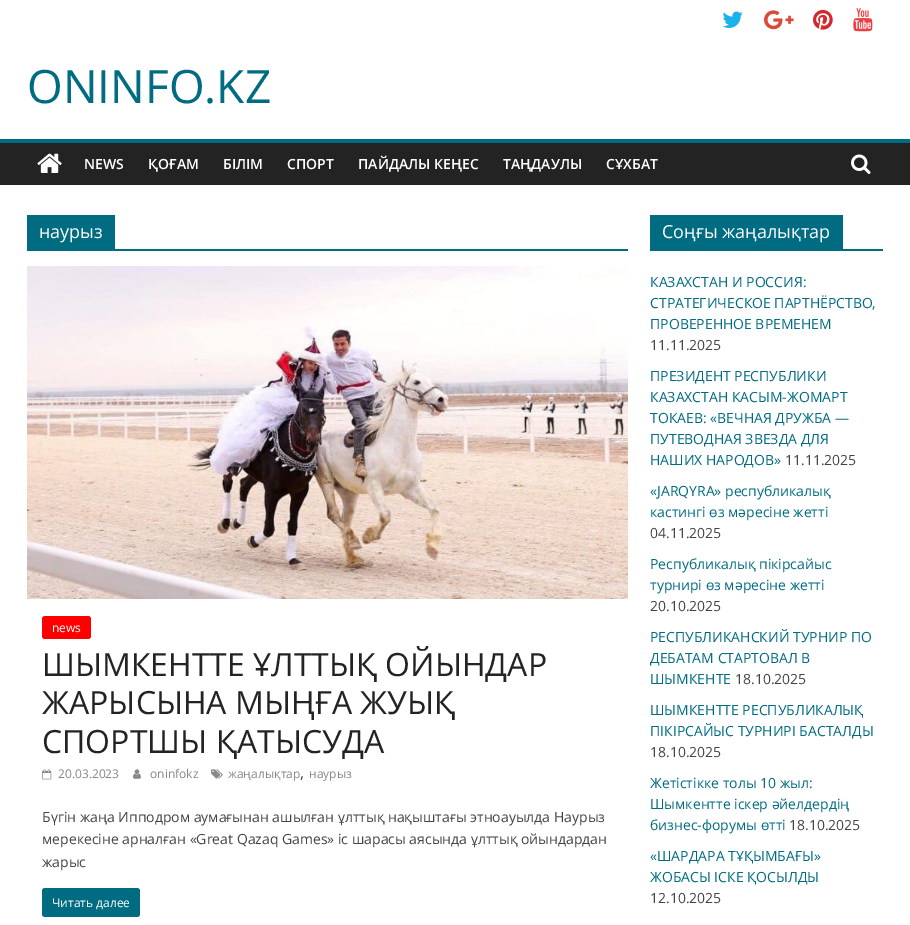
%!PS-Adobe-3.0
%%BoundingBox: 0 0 910 925
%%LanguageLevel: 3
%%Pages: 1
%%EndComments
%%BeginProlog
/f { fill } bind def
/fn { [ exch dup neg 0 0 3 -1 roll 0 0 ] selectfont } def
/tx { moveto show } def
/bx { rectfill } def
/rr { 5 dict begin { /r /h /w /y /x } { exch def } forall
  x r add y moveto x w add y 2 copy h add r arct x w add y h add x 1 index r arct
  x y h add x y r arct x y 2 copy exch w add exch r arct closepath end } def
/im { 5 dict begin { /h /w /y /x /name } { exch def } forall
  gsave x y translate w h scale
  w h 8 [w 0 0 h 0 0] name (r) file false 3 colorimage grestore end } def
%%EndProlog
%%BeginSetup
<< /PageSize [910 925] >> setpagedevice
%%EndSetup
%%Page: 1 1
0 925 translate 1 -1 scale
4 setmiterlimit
1 setgray
0 0 910 925 bx
(image0.raw) 722 11 21 17 im
(image1.raw) 764 10 30 20 im
(image2.raw) 813 9 20 21 im
(image3.raw) 853 8 20 24 im
/OpenSans-Regular 46 fn
0 0.424 0.51 setrgbcolor
(ONINFO.KZ) 27 103 tx
0.137 setgray
0 143 910 42 bx
0 0.424 0.51 setrgbcolor
0 139 910 4 bx
(image4.raw) 37 153 25 20 im
/OpenSans-SemiBold 14 fn
1 setgray
(NEWS) 84 169 tx
(ҚОҒАМ) 148 169 tx
(БІЛІМ) 223 169 tx
(СПОРТ) 287 169 tx
(ПАЙДАЛЫ КЕҢЕС) 358 169 tx
(ТАҢДАУЛЫ) 503 169 tx
(СҰХБАТ) 606 169 tx
(image5.raw) 851 154 20 20 im
0 0.424 0.51 setrgbcolor
27 249 601 2 bx
27 215 88 34 bx
/OpenSans-Regular 18 fn
1 setgray
(наурыз) 39 238 tx
(image6.raw) 27 266 601 333 im
1 0 0 setrgbcolor
42 616 49 23 3 rr f
/OpenSans-Regular 12 fn
1 setgray
(news) 52 632 tx
/OpenSans-Regular 32 fn
0.137 setgray
(ШЫМКЕНТТЕ ҰЛТТЫҚ ОЙЫНДАР) 42 676 tx
(ЖАРЫСЫНА МЫҢҒА ЖУЫҚ) 42 714 tx
(СПОРТШЫ ҚАТЫСУДА) 42 753 tx
(image7.raw) 42 769 10 11 im
/OpenSans-Regular 12 fn
0.533 setgray
(20.03.2023) 58 778 tx
(image8.raw) 133 769 8 10 im
(oninfokz) 150 778 tx
(image9.raw) 211 769 12 10 im
(жаңалықтар) 228 778 tx
/OpenSans-Regular 16 fn
0.267 setgray
(,) 300 778 tx
/OpenSans-Regular 12 fn
0.533 setgray
(наурыз) 309 778 tx
/OpenSans-Regular 14 fn
0.267 setgray
(Бүгін жаңа Ипподром аумағынан ашылған ұлттық нақыштағы этноауылда Наурыз) 42 822 tx
(мерекесіне арналған «Great Qazaq Games» іс шарасы аясында ұлттық ойындардан) 42 844 tx
(жарыс) 42 867 tx
0 0.424 0.51 setrgbcolor
42 888 98 29 3 rr f
/OpenSans-Regular 12 fn
1 setgray
(Читать далее) 52 907 tx
0 0.424 0.51 setrgbcolor
650 249 233 2 bx
650 215 193 34 bx
/OpenSans-Regular 18 fn
1 setgray
(Соңғы жаңалықтар) 662 238 tx
/OpenSans-Regular 14 fn
0 0.424 0.51 setrgbcolor
(КАЗАХСТАН И РОССИЯ:) 650 287 tx
(СТРАТЕГИЧЕСКОЕ ПАРТНЁРСТВО,) 650 308 tx
(ПРОВЕРЕННОЕ ВРЕМЕНЕМ) 650 329 tx
0.267 setgray
(11.11.2025) 650 350 tx
0 0.424 0.51 setrgbcolor
(ПРЕЗИДЕНТ РЕСПУБЛИКИ) 650 381 tx
(КАЗАХСТАН КАСЫМ-ЖОМАРТ) 650 402 tx
(ТОКАЕВ: «ВЕЧНАЯ ДРУЖБА —) 650 423 tx
(ПУТЕВОДНАЯ ЗВЕЗДА ДЛЯ) 650 444 tx
(НАШИХ НАРОДОВ») 650 465 tx
0.267 setgray
(11.11.2025) 785 465 tx
0 0.424 0.51 setrgbcolor
(«JARQYRA» республикалық) 650 496 tx
(кастингі өз мәресіне жетті) 650 517 tx
0.267 setgray
(04.11.2025) 650 538 tx
0 0.424 0.51 setrgbcolor
(Республикалық пікірсайыс) 650 569 tx
(турнирі өз мәресіне жетті) 650 590 tx
0.267 setgray
(20.10.2025) 650 611 tx
0 0.424 0.51 setrgbcolor
(РЕСПУБЛИКАНСКИЙ ТУРНИР ПО) 650 642 tx
(ДЕБАТАМ СТАРТОВАЛ В) 650 663 tx
(ШЫМКЕНТЕ) 650 684 tx
0.267 setgray
(18.10.2025) 735 684 tx
0 0.424 0.51 setrgbcolor
(ШЫМКЕНТТЕ РЕСПУБЛИКАЛЫҚ) 650 715 tx
(ПІКІРСАЙЫС ТУРНИРІ БАСТАЛДЫ) 650 736 tx
0.267 setgray
(18.10.2025) 650 757 tx
0 0.424 0.51 setrgbcolor
(Жетістікке толы 10 жыл:) 650 788 tx
(Шымкентте іскер әйелдердің) 650 809 tx
(бизнес-форумы өтті) 650 830 tx
0.267 setgray
(18.10.2025) 789 830 tx
0 0.424 0.51 setrgbcolor
(«ШАРДАРА ТҰҚЫМБАҒЫ») 650 861 tx
(ЖОБАСЫ ІСКЕ ҚОСЫЛДЫ) 650 882 tx
0.267 setgray
(12.10.2025) 650 903 tx
showpage
%%EOF
